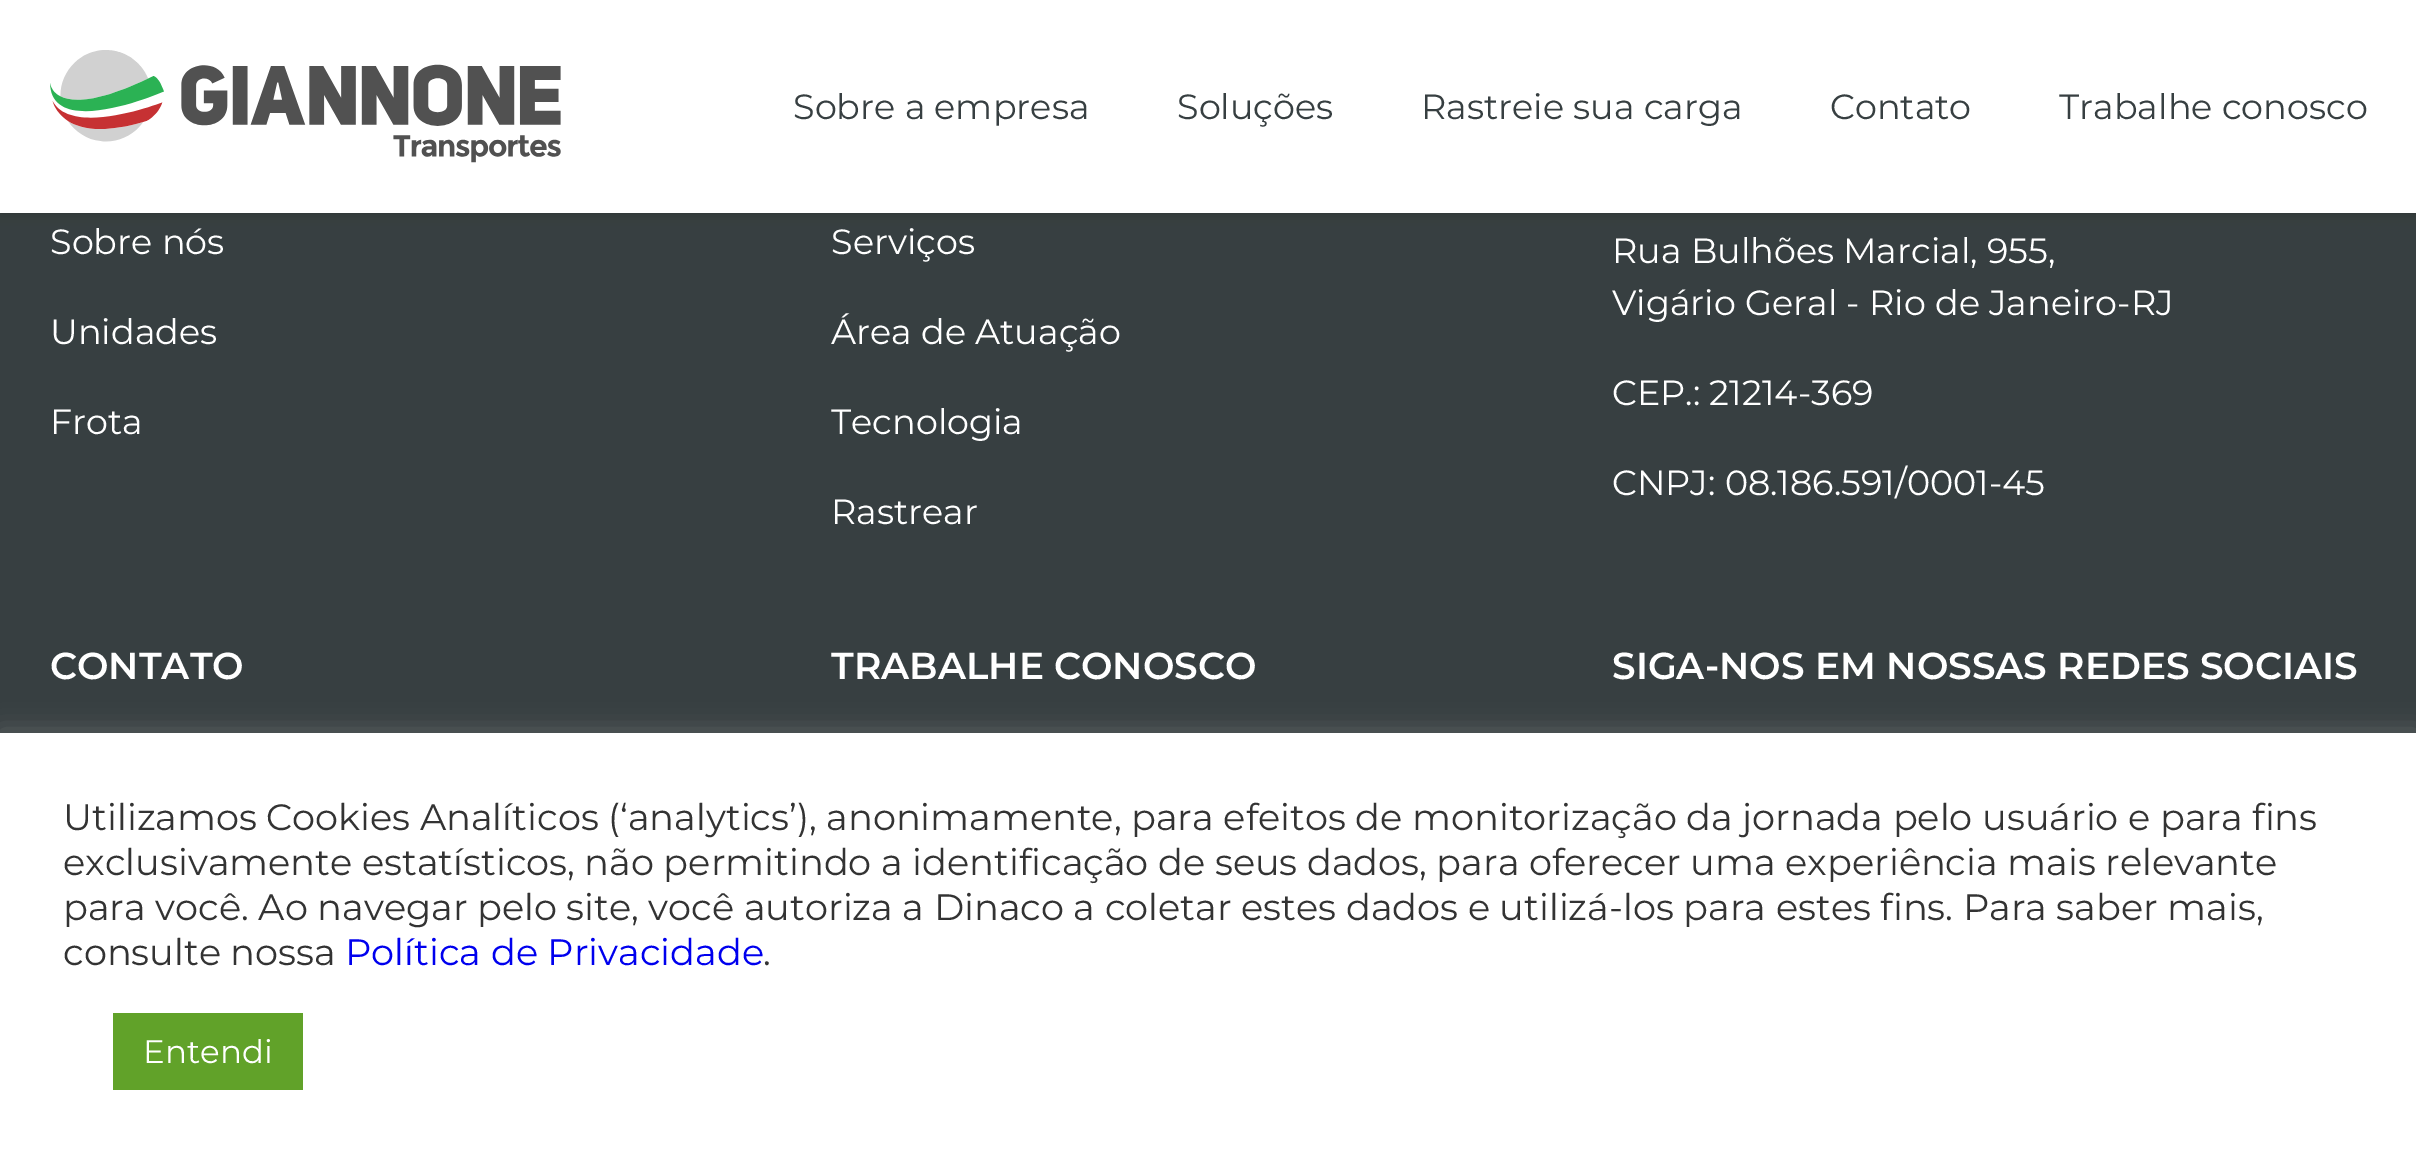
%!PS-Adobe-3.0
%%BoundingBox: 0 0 2416 1164
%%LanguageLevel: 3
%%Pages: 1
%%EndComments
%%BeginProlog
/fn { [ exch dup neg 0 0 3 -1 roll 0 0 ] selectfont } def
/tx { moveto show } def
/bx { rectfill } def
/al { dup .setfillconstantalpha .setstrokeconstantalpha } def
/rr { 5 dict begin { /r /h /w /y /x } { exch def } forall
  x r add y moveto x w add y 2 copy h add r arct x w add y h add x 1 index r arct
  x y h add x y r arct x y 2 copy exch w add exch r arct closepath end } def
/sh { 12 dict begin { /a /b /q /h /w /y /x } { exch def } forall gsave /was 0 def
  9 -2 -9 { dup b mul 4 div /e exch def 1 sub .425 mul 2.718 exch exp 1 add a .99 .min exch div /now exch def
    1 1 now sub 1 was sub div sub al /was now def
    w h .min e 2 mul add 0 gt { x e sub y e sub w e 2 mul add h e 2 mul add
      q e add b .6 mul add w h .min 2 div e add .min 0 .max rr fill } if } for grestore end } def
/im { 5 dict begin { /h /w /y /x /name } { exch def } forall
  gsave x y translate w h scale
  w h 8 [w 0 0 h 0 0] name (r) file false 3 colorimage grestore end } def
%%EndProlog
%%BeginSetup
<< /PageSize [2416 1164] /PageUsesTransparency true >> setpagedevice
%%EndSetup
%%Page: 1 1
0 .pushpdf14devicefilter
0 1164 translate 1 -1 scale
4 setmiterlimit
0.216 0.247 0.255 setrgbcolor
0 0 2416 1164 bx
0 setgray
0 0 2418 213 0 6 0.2 sh
1 setgray
0 0 2416 213 bx
(image0.raw) 50 50 511 113 im
/Montserrat-Regular 35 fn
0.216 0.247 0.255 setrgbcolor
(Sobre a empresa) 793 119 tx
(Soluções) 1177 119 tx
(Rastreie sua carga) 1421 119 tx
(Contato) 1830 119 tx
(Trabalhe conosco) 2059 119 tx
1 setgray
(Sobre nós) 50 254 tx
(Unidades) 50 344 tx
(Frota) 50 434 tx
(Serviços) 831 254 tx
(Área de Atuação) 831 344 tx
(Tecnologia) 831 434 tx
(Rastrear) 831 524 tx
(Rua Bulhões Marcial, 955,) 1612 263 tx
(Vigário Geral - Rio de Janeiro-RJ) 1612 315 tx
(CEP.: 21214-369) 1612 405 tx
(CNPJ: 08.186.591/0001-45) 1612 495 tx
/Montserrat-SemiBold 37.5 fn
(CONTATO) 50 679 tx
(TRABALHE CONOSCO) 831 679 tx
(SIGA-NOS EM NOSSAS REDES SOCIAIS) 1612 679 tx
0.675 0.671 0.671 setrgbcolor
0 730 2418 433 0 12.5 0.3 sh
1 setgray
0 733 2416 431 bx
/Montserrat-Regular 36.67 fn
0.2 setgray
(Utilizamos Cookies Analíticos \(‘analytics’\), anonimamente, para efeitos de monitorização da jornada pelo usuário e para fins) 63 830 tx
(exclusivamente estatísticos, não permitindo a identificação de seus dados, para oferecer uma experiência mais relevante) 63 875 tx
(para você. Ao navegar pelo site, você autoriza a Dinaco a coletar estes dados e utilizá-los para estes fins. Para saber mais,) 63 920 tx
(consulte nossa) 63 965 tx
0 0 0.933 setrgbcolor
(Política de Privacidade) 345 965 tx
0.2 setgray
(.) 763 965 tx
0.38 0.635 0.161 setrgbcolor
113 1013 190 77 bx
/Montserrat-Regular 32.5 fn
1 setgray
(Entendi) 143 1063 tx
.poppdf14devicefilter showpage
%%EOF
